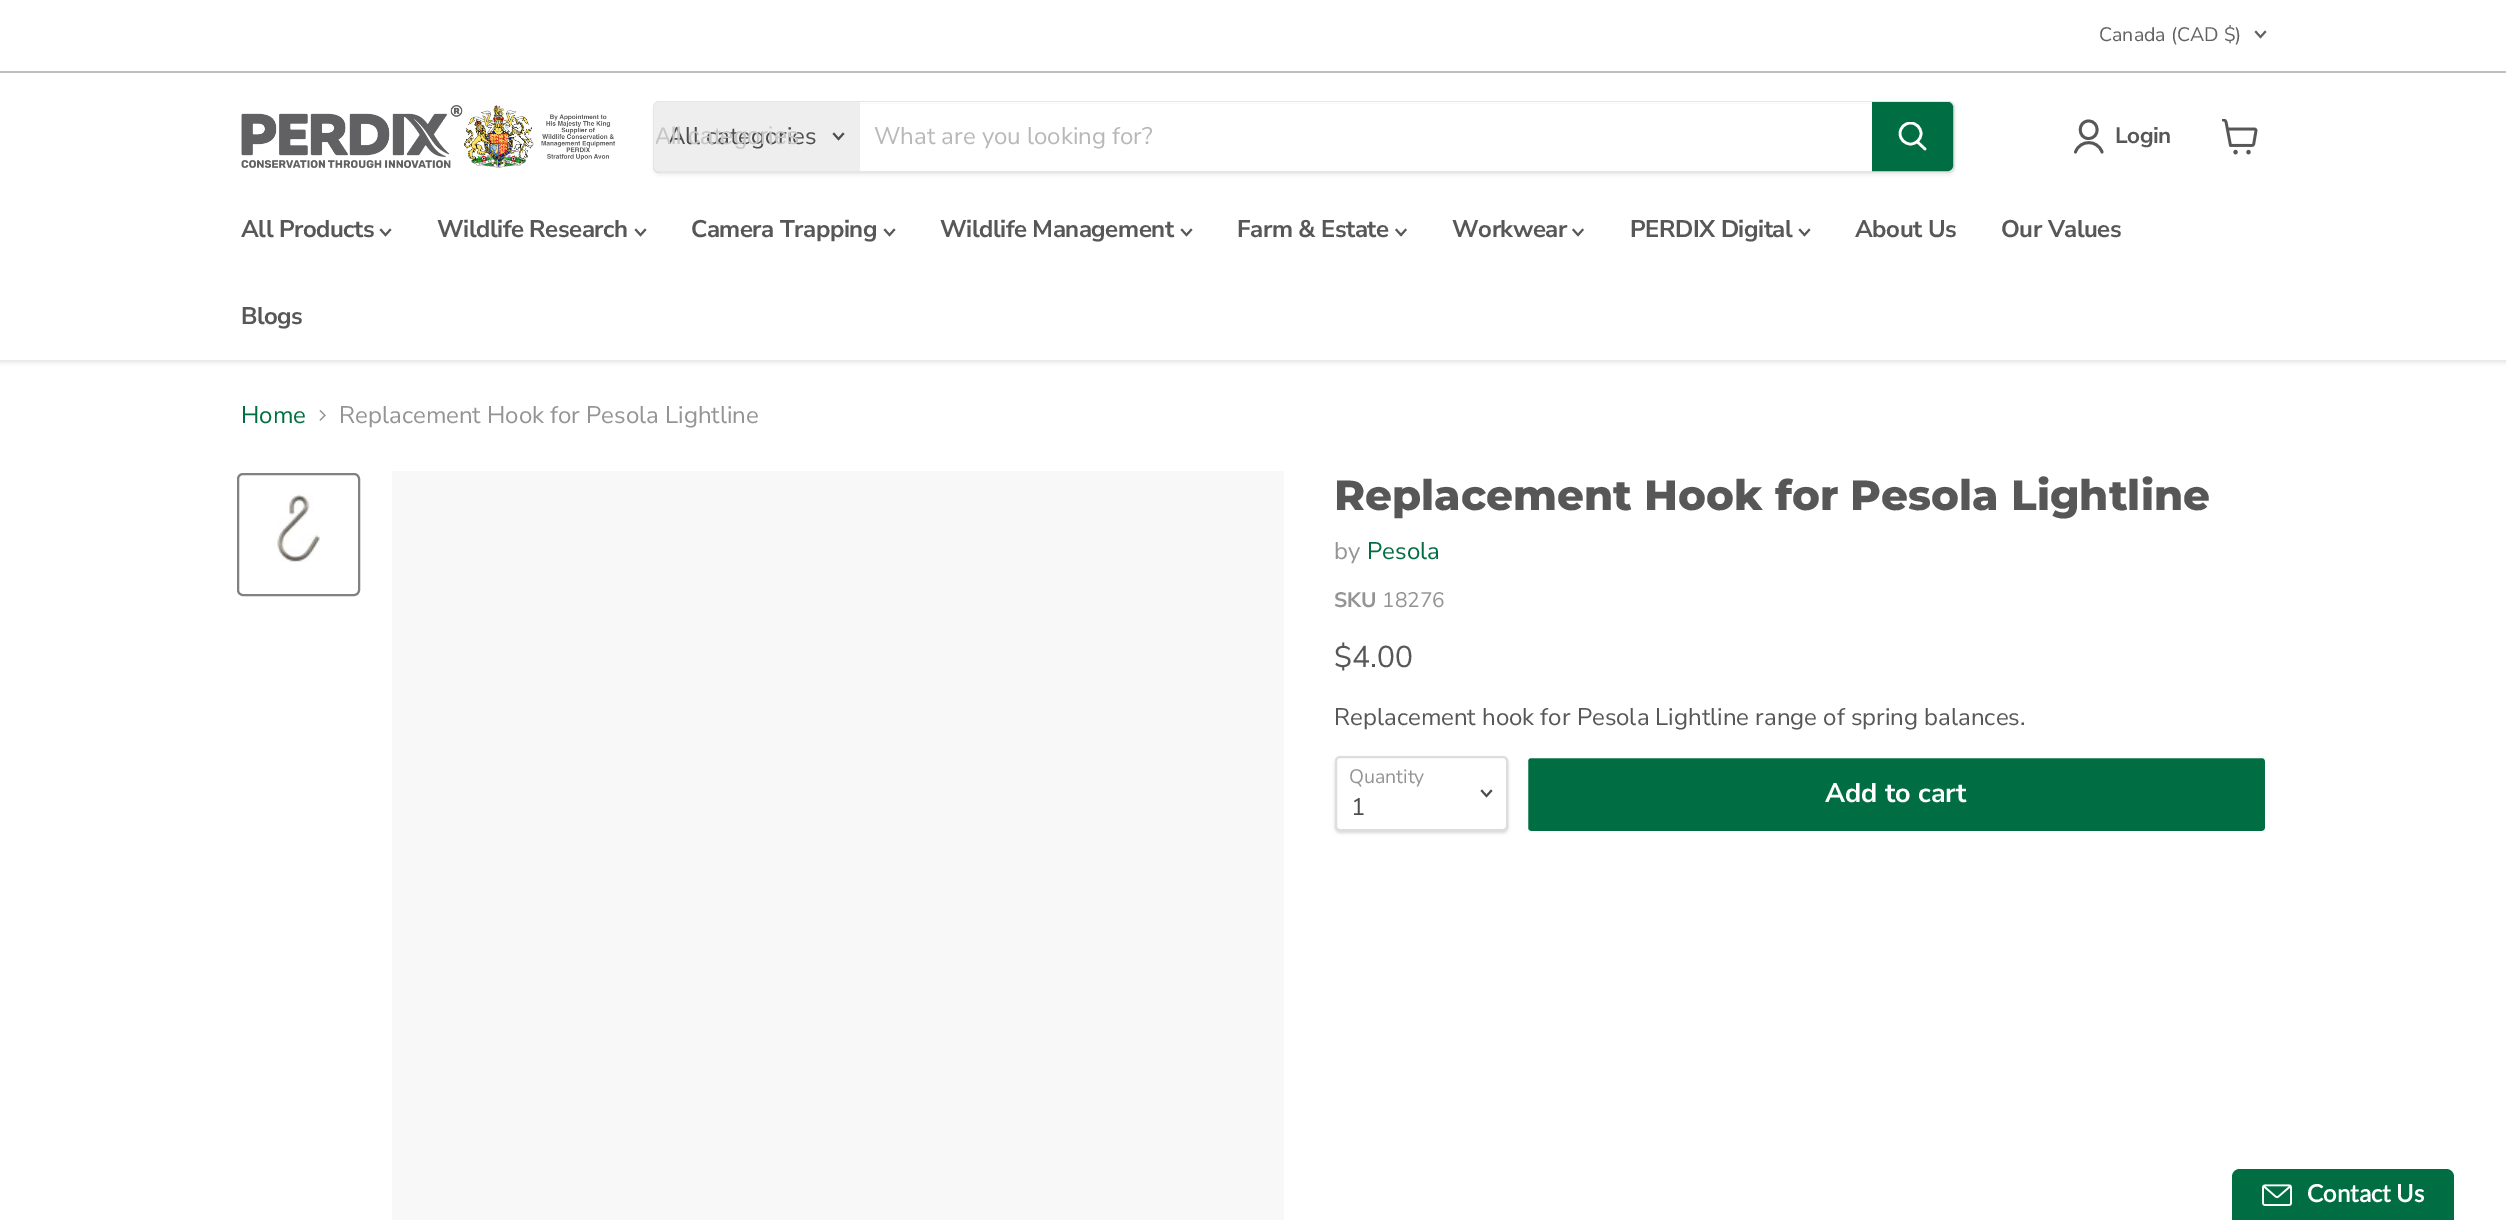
%!PS-Adobe-3.0
%%BoundingBox: 0 0 2506 1220
%%LanguageLevel: 3
%%Pages: 1
%%EndComments
%%BeginProlog
/m { moveto } bind def
/l { lineto } bind def
/c { curveto } bind def
/h { closepath } bind def
/f { fill } bind def
/S { stroke } bind def
/q { gsave } bind def
/Q { grestore } bind def
/w { setlinewidth } bind def
/fn { [ exch dup neg 0 0 3 -1 roll 0 0 ] selectfont } def
/tx { moveto show } def
/bx { rectfill } def
/al { dup .setfillconstantalpha .setstrokeconstantalpha } def
/ci { newpath 0 360 arc closepath } def
/rr { 5 dict begin { /r /h /w /y /x } { exch def } forall
  x r add y moveto x w add y 2 copy h add r arct x w add y h add x 1 index r arct
  x y h add x y r arct x y 2 copy exch w add exch r arct closepath end } def
/sh { 12 dict begin { /a /b /q /h /w /y /x } { exch def } forall gsave /was 0 def
  9 -2 -9 { dup b mul 4 div /e exch def 1 sub .425 mul 2.718 exch exp 1 add a .99 .min exch div /now exch def
    1 1 now sub 1 was sub div sub al /was now def
    w h .min e 2 mul add 0 gt { x e sub y e sub w e 2 mul add h e 2 mul add
      q e add b .6 mul add w h .min 2 div e add .min 0 .max rr fill } if } for grestore end } def
/im { 5 dict begin { /h /w /y /x /name } { exch def } forall
  gsave x y translate w h scale
  w h 8 [w 0 0 h 0 0] name (r) file false 3 colorimage grestore end } def
%%EndProlog
%%BeginSetup
<< /PageSize [2506 1220] /PageUsesTransparency true >> setpagedevice
%%EndSetup
%%Page: 1 1
0 .pushpdf14devicefilter
0 1220 translate 1 -1 scale
4 setmiterlimit
1 setgray
0 0 2506 1220 bx
q
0 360 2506 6 rectclip
0.502 setgray
0 74 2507 288 0 3 0.25 sh
Q
1 70 2505 1 bx
0.749 setgray
0 71 2506 2 bx
/NunitoSans-ExtraLight 19.5 fn
0.384 setgray
(Canada \(CAD $\)) 2099 41 tx
1.9 w
2 setlinecap
2260.5 37 m 2265 32 l 2260.5 37 m 2256 32 l S
(image0.raw) 241 105 374 63 im
q
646 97 m 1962 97 l 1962 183 l 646 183 l h 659 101 m 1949 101 l 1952.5 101 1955 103.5 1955 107 c 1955 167 l 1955 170.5 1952.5 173 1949 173 c 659 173 l 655.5 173 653 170.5 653 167 c 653 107 l 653 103.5 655.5 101 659 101 c h eoclip newpath
0.502 setgray
653 104 1302 72 6 2 0.11 sh
Q
0.2 al
0.502 setgray
2 w
0 setlinecap
654 102 1300 70 5 rr S
1 al
0.933 setgray
659 102 m 860 102 l 860 171 l 659 171 l 656 171 654 169 654 166 c 654 107 l 654 104 656 102 659 102 c h f
/NunitoSans-ExtraLight 24 fn
0.302 setgray
(All categories) 668 144 tx
q
656 123 202 27 rectclip
/LiberationSans-Regular 24 fn
0.78 setgray
(All categories) 655 144 tx
Q
1.9 w
2 setlinecap
838.5 139 m 843 134 l 838.5 139 m 834 134 l S
1 setgray
860 102 1012 1 bx
0.722 setgray
(What are you looking for?) 874 144 tx
0 0.431 0.259 setrgbcolor
1873 103 m 1948 103 l 1950 103 1952 105 1952 107 c 1952 166 l 1952 168 1950 170 1948 170 c 1873 170 l h q f Q
2 w
0 setlinecap
S
1 setgray
2.6 w
1 setlinecap
1925 149 m 1917.5 142 l S
q
1898 122 30 31 rectclip
0 setlinecap
1910.5 133.5 10.5 ci S
Q
0.341 setgray
2.8 w
1 setlinejoin
2088.5 138.5 m 2100 138.5 2100 121 2088.5 121 c 2077.5 121 2077.5 138.5 2088.5 138.5 c h 2102 152 m 2097.5 139.5 2080 139.5 2075.5 152 c S
/NunitoSans-Bold 22.5 fn
2115 143 m -0.5 0 (Login) ashow
(image1.raw) 2222 119 36 36 im
/NunitoSans-Bold 24 fn
241 237 m -0.5 0 (All Products) ashow
1.9 w
2 setlinecap
0 setlinejoin
385.5 235 m 390 230 l 385.5 235 m 381 230 l S
437 237 m -0.5 0 (Wildlife Research) ashow
640.5 235 m 645 230 l 640.5 235 m 636 230 l S
691 237 m -0.5 0 (Camera Trapping) ashow
889.5 235 m 894 230 l 889.5 235 m 885 230 l S
940 237 m -0.5 0 (Wildlife Management) ashow
1186.5 235 m 1191 230 l 1186.5 235 m 1182 230 l S
1237 237 m -0.5 0 (Farm & Estate) ashow
1401 235 m 1405.5 230 l 1401 235 m 1396.5 230 l S
1452 237 m -0.5 0 (Workwear) ashow
1578 235 m 1582.5 230 l 1578 235 m 1573.5 230 l S
1630 237 m -0.5 0 (PERDIX Digital) ashow
1804.5 235 m 1809 230 l 1804.5 235 m 1800 230 l S
1855 237 m -0.5 0 (About Us) ashow
2001 237 m -0.5 0 (Our Values) ashow
241 324 m -0.5 0 (Blogs) ashow
/NunitoSans-ExtraLight 24 fn
0 0.431 0.259 setrgbcolor
(Home) 241 423 tx
(image2.raw) 319 410 7 11 im
0.58 setgray
(Replacement Hook for Pesola Lightline) 339 423 tx
0.506 setgray
2 w
0 setlinecap
238 474 121 121 5 rr S
(image3.raw) 277 492 44 70 im
0.973 setgray
392 471 892 749 bx
/Montserrat-ExtraBold 42 fn
0.341 setgray
(Replacement Hook for Pesola Lightline) 1334 510 tx
/NunitoSans-ExtraLight 24 fn
0.58 setgray
(by) 1334 559 tx
0 0.431 0.259 setrgbcolor
(Pesola) 1367 559 tx
/NunitoSans-Bold 21 fn
0.58 setgray
(SKU) 1334 607 tx
/NunitoSans-ExtraLight 21 fn
(18276) 1382 607 tx
/NunitoSans-ExtraLight 30 fn
0.341 setgray
($4.00) 1334 667 tx
/NunitoSans-ExtraLight 24 fn
(Replacement hook for Pesola Lightline range of spring balances.) 1334 725 tx
0 setgray
1335 758 173 75 5 1.5 0.15 sh
1 setgray
1336 757 171 73 4 rr q f Q
0.867 setgray
S
/NunitoSans-ExtraLight 19.5 fn
0.58 setgray
(Quantity) 1349 783 tx
0.302 setgray
1.9 w
2 setlinecap
1486.5 796 m 1491 791 l 1486.5 796 m 1482 791 l S
/NunitoSans-ExtraLight 24 fn
(1) 1351 815 tx
0 0.431 0.259 setrgbcolor
1527 757 739 75 4 rr q f Q
1 setgray
2 w
0 setlinecap
S
/NunitoSans-Bold 27 fn
(Add to cart) 1825 802 tx
0 0.431 0.259 setrgbcolor
2240 1169 m 2446 1169 l 2450.5 1169 2454 1172.5 2454 1177 c 2454 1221 l 2232 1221 l 2232 1177 l 2232 1172.5 2235.5 1169 2240 1169 c h f
(image4.raw) 2262 1184 30 22 im
/Lato-Bold 24 fn
1 setgray
(Contact Us) 2307 1202 tx
.poppdf14devicefilter showpage
%%EOF
